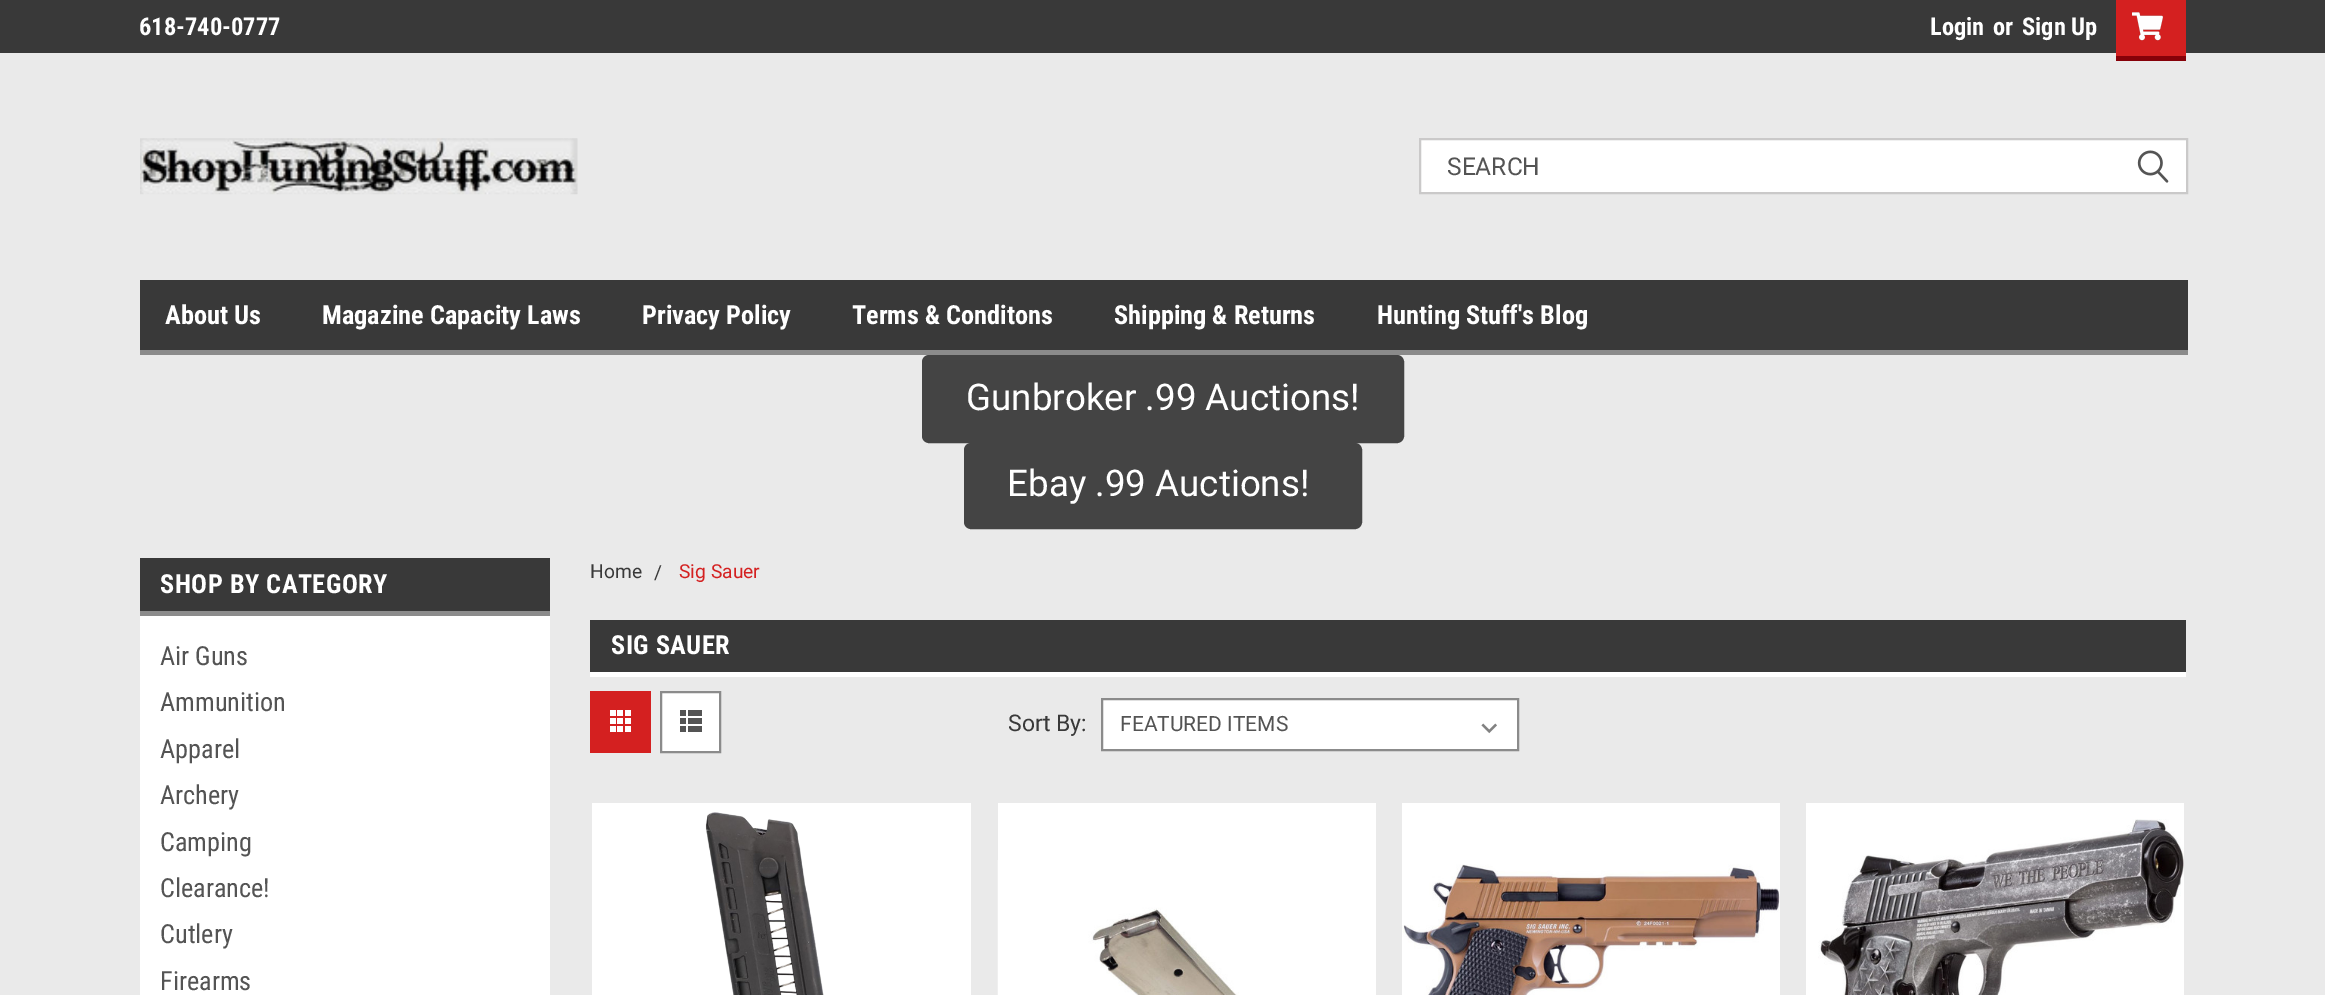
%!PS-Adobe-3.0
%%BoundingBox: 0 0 2325 995
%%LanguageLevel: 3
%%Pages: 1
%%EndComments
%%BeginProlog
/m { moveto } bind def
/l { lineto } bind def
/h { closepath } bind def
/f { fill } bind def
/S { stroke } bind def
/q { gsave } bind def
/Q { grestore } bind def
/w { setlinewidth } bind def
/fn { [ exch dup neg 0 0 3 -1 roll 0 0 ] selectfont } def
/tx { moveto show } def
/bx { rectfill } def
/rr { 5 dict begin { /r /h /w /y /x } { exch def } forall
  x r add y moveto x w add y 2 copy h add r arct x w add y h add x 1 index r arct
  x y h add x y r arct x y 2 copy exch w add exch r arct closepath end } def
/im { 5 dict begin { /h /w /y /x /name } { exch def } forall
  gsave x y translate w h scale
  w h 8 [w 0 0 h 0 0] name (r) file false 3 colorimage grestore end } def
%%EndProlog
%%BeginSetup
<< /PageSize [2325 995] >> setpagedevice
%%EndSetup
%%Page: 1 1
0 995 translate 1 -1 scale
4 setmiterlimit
0.918 setgray
0 0 2325 995 bx
0.224 setgray
0 0 2325 53 bx
/RobotoCondensed-Bold 24.5 fn
1 setgray
(618-740-0777) 139 35 tx
(Login) 1930 35 tx
(or) 1993 35 tx
(Sign Up) 2022 35 tx
0.831 0.125 0.125 setrgbcolor
2116 0 70 56 bx
0.525 0.004 0.035 setrgbcolor
2116 56 70 5 bx
(image0.raw) 2132 12 31 29 im
(image1.raw) 140 138 438 57 im
1 setgray
1420 139 m 2187 139 l 2187 193 l 1420 193 l h q f Q
0.792 0.788 0.788 setrgbcolor
2 w
S
/Roboto-Regular 24.5 fn
0.329 setgray
(SEARCH) 1447 175 tx
(image2.raw) 2137 150 32 33 im
0.224 setgray
140 280 2048 70 bx
0.545 setgray
140 350 2048 5 bx
/RobotoCondensed-Bold 26.25 fn
1 setgray
(About Us) 165 324 tx
(Magazine Capacity Laws) 322 324 tx
(Privacy Policy) 642 324 tx
(Terms & Conditons) 852 324 tx
(Shipping & Returns) 1114 324 tx
(Hunting Stuff's Blog) 1377 324 tx
0.267 setgray
923 356 480 86 6 rr q f Q
S
/Roboto-Regular 36.75 fn
1 setgray
(Gunbroker .99 Auctions!) 966 410 tx
0.267 setgray
965 444 396 84 6 rr q f Q
S
1 setgray
(Ebay .99 Auctions!) 1007 496 tx
0.224 setgray
140 558 410 53 bx
0.545 setgray
140 611 410 5 bx
/RobotoCondensed-Bold 26.25 fn
1 setgray
160 593 m 0.5 0 (SHOP BY CATEGORY) ashow
140 616 410 379 bx
/RobotoCondensed-Regular 26.25 fn
0.329 setgray
(Air Guns) 160 665 tx
(Ammunition) 160 711 tx
(Apparel) 160 758 tx
(Archery) 160 804 tx
(Camping) 160 851 tx
(Clearance!) 160 897 tx
(Cutlery) 160 943 tx
(Firearms) 160 990 tx
/Roboto-Regular 19.25 fn
0.224 setgray
(Home) 590 578 tx
(/) 654 579 tx
0.831 0.125 0.125 setrgbcolor
(Sig Sauer) 679 578 tx
0.224 setgray
590 620 1596 52 bx
1 setgray
590 672 1596 5 bx
/RobotoCondensed-Bold 26.25 fn
611 654 m 0.5 0 (SIG SAUER) ashow
0.831 0.125 0.125 setrgbcolor
590 691 61 62 bx
(image3.raw) 610 710 21 22 im
1 setgray
661 692 m 720 692 l 720 752 l 661 752 l h q f Q
0.545 setgray
S
(image4.raw) 680 710 22 22 im
/Roboto-Regular 23 fn
0.224 setgray
(Sort By:) 1008 731 tx
1 setgray
1103 700 414 49 bx
(image5.raw) 1481 723 16 11 im
0.545 setgray
1102 699 416 51 rectstroke
/Roboto-Regular 21 fn
0.329 setgray
(FEATURED ITEMS) 1120 731 tx
1 setgray
592 803 379 192 bx
(image6.raw) 705 812 119 183 im
998 803 378 192 bx
(image7.raw) 997 860 242 135 im
1402 803 378 192 bx
(image8.raw) 1402 864 378 131 im
1806 803 378 192 bx
(image9.raw) 1818 819 366 176 im
showpage
%%EOF
